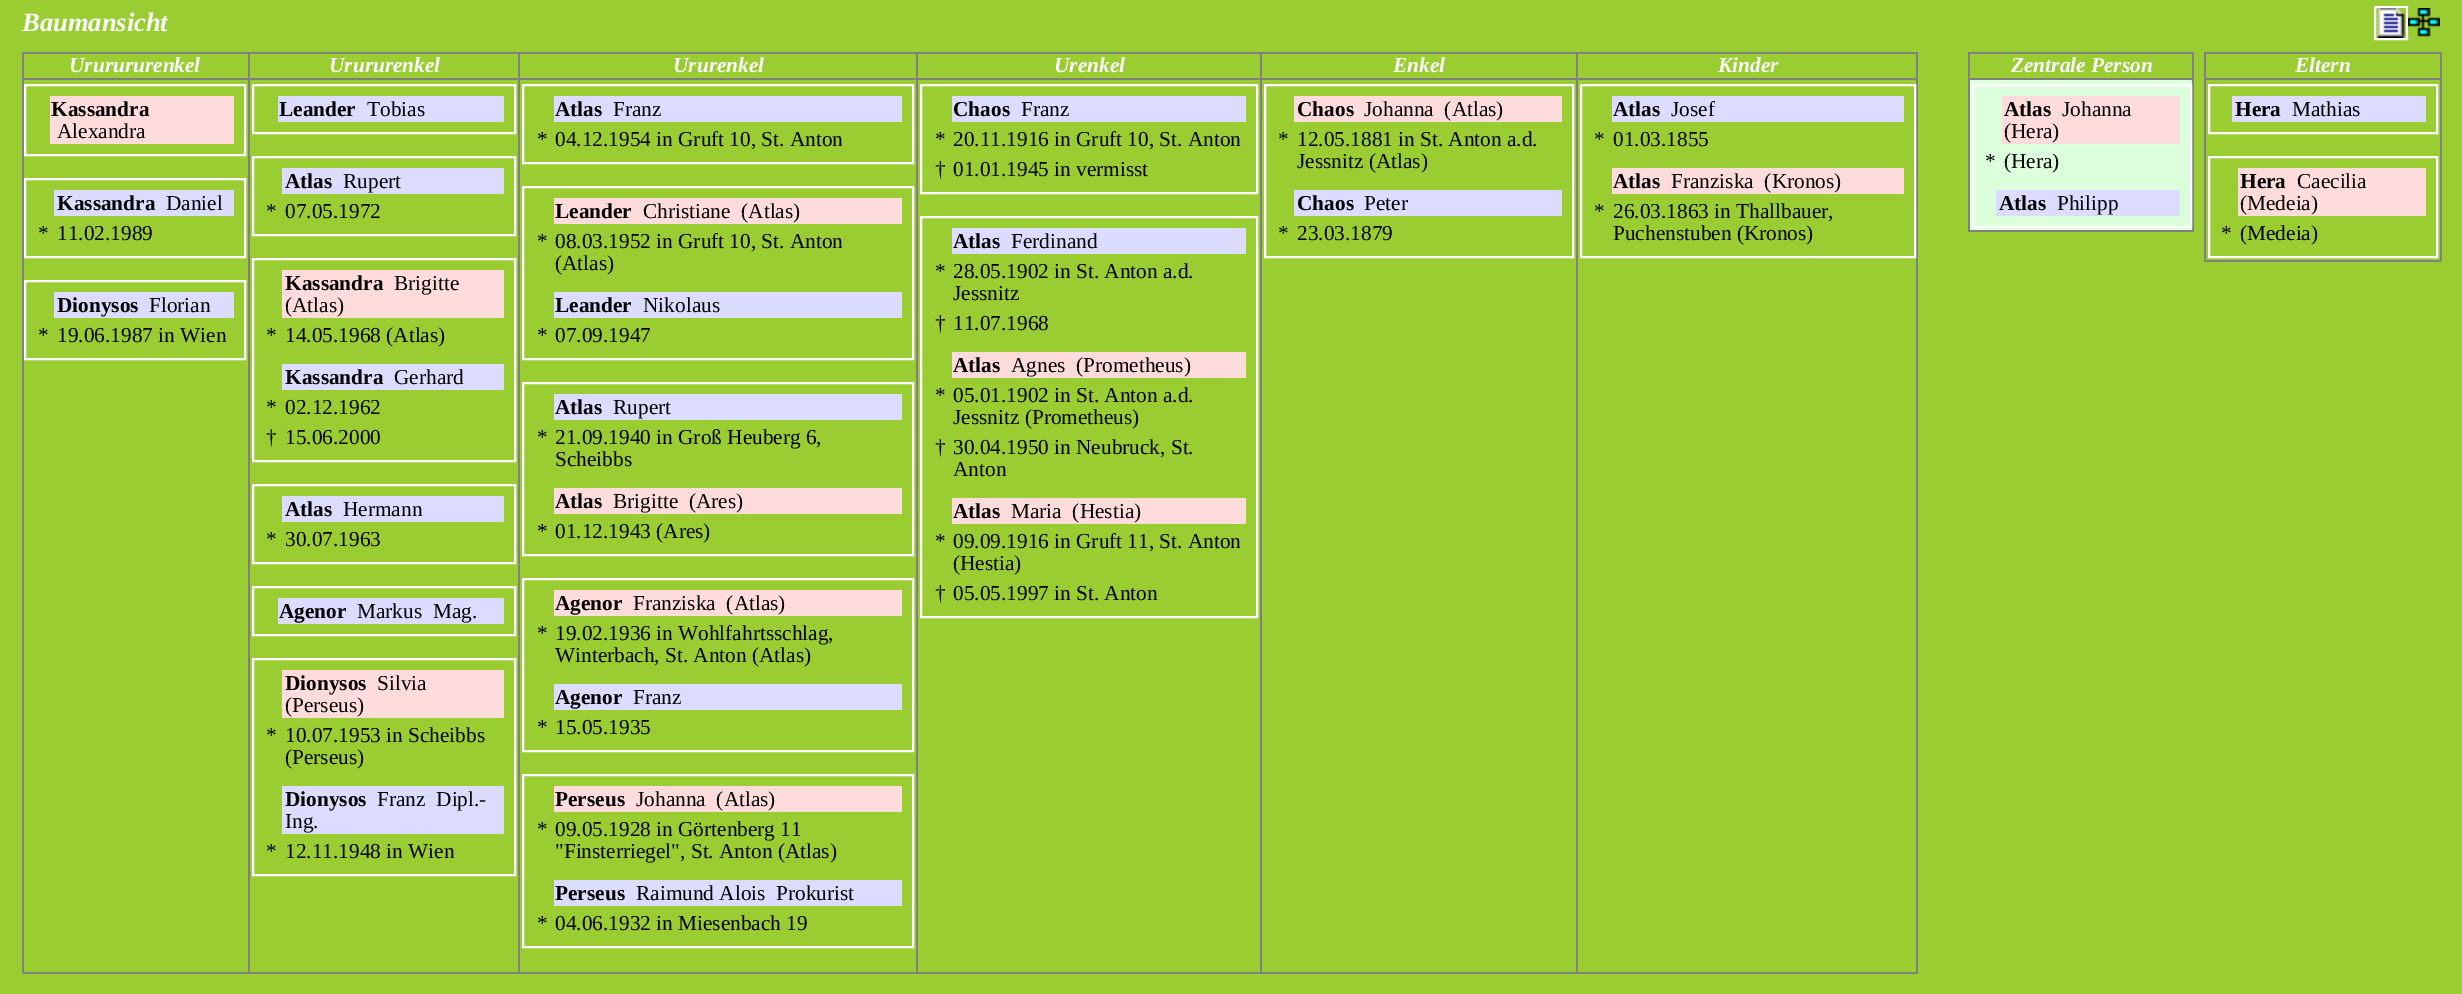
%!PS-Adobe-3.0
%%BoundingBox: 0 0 2462 994
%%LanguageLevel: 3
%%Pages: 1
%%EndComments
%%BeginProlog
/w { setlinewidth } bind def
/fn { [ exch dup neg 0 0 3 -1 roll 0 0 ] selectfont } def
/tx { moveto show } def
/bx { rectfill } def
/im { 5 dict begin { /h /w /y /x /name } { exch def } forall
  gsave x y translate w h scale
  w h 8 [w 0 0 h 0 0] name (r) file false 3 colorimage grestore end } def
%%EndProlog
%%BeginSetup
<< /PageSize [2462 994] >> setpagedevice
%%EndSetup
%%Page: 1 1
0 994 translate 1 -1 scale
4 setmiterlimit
0.604 0.804 0.196 setrgbcolor
0 0 2462 994 bx
/LiberationSerif-BoldItalic 26.5 fn
1 setgray
(Baumansicht) 22 31 tx
2 w
2375 7 32 32 rectstroke
(image0.raw) 2377 8 28 30 im
(image1.raw) 2408 8 32 29 im
0.502 setgray
1576 52 342 2 bx
1576 78 342 2 bx
1916 78 2 896 bx
1576 972 342 2 bx
1576 78 2 896 bx
1260 78 318 2 bx
1576 52 2 28 bx
1260 52 318 2 bx
1260 972 318 2 bx
1260 78 2 896 bx
916 78 346 2 bx
1260 52 2 28 bx
916 52 346 2 bx
916 972 346 2 bx
916 78 2 896 bx
518 78 400 2 bx
916 52 2 28 bx
518 52 400 2 bx
518 972 400 2 bx
518 78 2 896 bx
248 78 272 2 bx
518 52 2 28 bx
248 52 272 2 bx
248 972 272 2 bx
248 78 2 896 bx
22 78 228 2 bx
248 52 2 28 bx
22 52 228 2 bx
22 972 228 2 bx
22 78 2 896 bx
22 52 2 28 bx
/LiberationSerif-BoldItalic 21.3 fn
1 setgray
(Ururururenkel) 69 72 tx
(Urururenkel) 329 72 tx
(Ururenkel) 673 72 tx
(Urenkel) 1054 72 tx
(Enkel) 1393 72 tx
0.502 setgray
1916 52 2 28 bx
1 setgray
(Kinder) 1718 72 tx
25 85 220 70 rectstroke
1 0.863 0.863 setrgbcolor
50 96 184 48 bx
/LiberationSerif-Bold 21.3 fn
0 setgray
(Kassandra) 51 116 tx
/LiberationSerif-Regular 21.3 fn
(Alexandra) 57 138 tx
1 setgray
25 179 220 78 rectstroke
0.863 0.863 1 setrgbcolor
54 190 180 26 bx
/LiberationSerif-Bold 21.3 fn
0 setgray
(Kassandra) 57 210 tx
/LiberationSerif-Regular 21.3 fn
(Daniel) 166 210 tx
(*) 38 240 tx
(11.02.1989) 57 240 tx
1 setgray
25 281 220 78 rectstroke
0.863 0.863 1 setrgbcolor
54 292 180 26 bx
/LiberationSerif-Bold 21.3 fn
0 setgray
(Dionysos) 57 312 tx
/LiberationSerif-Regular 21.3 fn
(Florian) 149 312 tx
(*) 38 342 tx
(19.06.1987 in Wien) 57 342 tx
1 setgray
253 85 262 48 rectstroke
0.863 0.863 1 setrgbcolor
278 96 226 26 bx
/LiberationSerif-Bold 21.3 fn
0 setgray
(Leander) 279 116 tx
/LiberationSerif-Regular 21.3 fn
(Tobias) 367 116 tx
1 setgray
253 157 262 78 rectstroke
0.863 0.863 1 setrgbcolor
282 168 222 26 bx
/LiberationSerif-Bold 21.3 fn
0 setgray
(Atlas) 285 188 tx
/LiberationSerif-Regular 21.3 fn
(Rupert) 343 188 tx
(*) 266 218 tx
(07.05.1972) 285 218 tx
1 setgray
253 259 262 202 rectstroke
1 0.863 0.863 setrgbcolor
282 270 222 48 bx
/LiberationSerif-Bold 21.3 fn
0 setgray
(Kassandra) 285 290 tx
/LiberationSerif-Regular 21.3 fn
(Brigitte) 394 290 tx
(\(Atlas\)) 285 312 tx
(*) 266 342 tx
(14.05.1968 \(Atlas\)) 285 342 tx
0.863 0.863 1 setrgbcolor
282 364 222 26 bx
/LiberationSerif-Bold 21.3 fn
0 setgray
(Kassandra) 285 384 tx
/LiberationSerif-Regular 21.3 fn
(Gerhard) 394 384 tx
(*) 266 414 tx
(02.12.1962) 285 414 tx
(†) 266 444 tx
(15.06.2000) 285 444 tx
1 setgray
253 485 262 78 rectstroke
0.863 0.863 1 setrgbcolor
282 496 222 26 bx
/LiberationSerif-Bold 21.3 fn
0 setgray
(Atlas) 285 516 tx
/LiberationSerif-Regular 21.3 fn
(Hermann) 343 516 tx
(*) 266 546 tx
(30.07.1963) 285 546 tx
1 setgray
253 587 262 48 rectstroke
0.863 0.863 1 setrgbcolor
278 598 226 26 bx
/LiberationSerif-Bold 21.3 fn
0 setgray
(Agenor) 279 618 tx
/LiberationSerif-Regular 21.3 fn
(Markus  Mag.) 357 618 tx
1 setgray
253 659 262 216 rectstroke
1 0.863 0.863 setrgbcolor
282 670 222 48 bx
/LiberationSerif-Bold 21.3 fn
0 setgray
(Dionysos) 285 690 tx
/LiberationSerif-Regular 21.3 fn
(Silvia) 377 690 tx
(\(Perseus\)) 285 712 tx
(*) 266 742 tx
(10.07.1953 in Scheibbs) 285 742 tx
(\(Perseus\)) 285 764 tx
0.863 0.863 1 setrgbcolor
282 786 222 48 bx
/LiberationSerif-Bold 21.3 fn
0 setgray
(Dionysos) 285 806 tx
/LiberationSerif-Regular 21.3 fn
(Franz  Dipl.-) 377 806 tx
(Ing.) 285 828 tx
(*) 266 858 tx
(12.11.1948 in Wien) 285 858 tx
1 setgray
523 85 390 78 rectstroke
0.863 0.863 1 setrgbcolor
554 96 348 26 bx
/LiberationSerif-Bold 21.3 fn
0 setgray
(Atlas) 555 116 tx
/LiberationSerif-Regular 21.3 fn
(Franz) 613 116 tx
(*) 537 146 tx
(04.12.1954 in Gruft 10, St. Anton) 555 146 tx
1 setgray
523 187 390 172 rectstroke
1 0.863 0.863 setrgbcolor
554 198 348 26 bx
/LiberationSerif-Bold 21.3 fn
0 setgray
(Leander) 555 218 tx
/LiberationSerif-Regular 21.3 fn
(Christiane  \(Atlas\)) 643 218 tx
(*) 537 248 tx
(08.03.1952 in Gruft 10, St. Anton) 555 248 tx
(\(Atlas\)) 555 270 tx
0.863 0.863 1 setrgbcolor
554 292 348 26 bx
/LiberationSerif-Bold 21.3 fn
0 setgray
(Leander) 555 312 tx
/LiberationSerif-Regular 21.3 fn
(Nikolaus) 643 312 tx
(*) 537 342 tx
(07.09.1947) 555 342 tx
1 setgray
523 383 390 172 rectstroke
0.863 0.863 1 setrgbcolor
554 394 348 26 bx
/LiberationSerif-Bold 21.3 fn
0 setgray
(Atlas) 555 414 tx
/LiberationSerif-Regular 21.3 fn
(Rupert) 613 414 tx
(*) 537 444 tx
(21.09.1940 in Groß Heuberg 6,) 555 444 tx
(Scheibbs) 555 466 tx
1 0.863 0.863 setrgbcolor
554 488 348 26 bx
/LiberationSerif-Bold 21.3 fn
0 setgray
(Atlas) 555 508 tx
/LiberationSerif-Regular 21.3 fn
(Brigitte  \(Ares\)) 613 508 tx
(*) 537 538 tx
(01.12.1943 \(Ares\)) 555 538 tx
1 setgray
523 579 390 172 rectstroke
1 0.863 0.863 setrgbcolor
554 590 348 26 bx
/LiberationSerif-Bold 21.3 fn
0 setgray
(Agenor) 555 610 tx
/LiberationSerif-Regular 21.3 fn
(Franziska  \(Atlas\)) 633 610 tx
(*) 537 640 tx
(19.02.1936 in Wohlfahrtsschlag,) 555 640 tx
(Winterbach, St. Anton \(Atlas\)) 555 662 tx
0.863 0.863 1 setrgbcolor
554 684 348 26 bx
/LiberationSerif-Bold 21.3 fn
0 setgray
(Agenor) 555 704 tx
/LiberationSerif-Regular 21.3 fn
(Franz) 633 704 tx
(*) 537 734 tx
(15.05.1935) 555 734 tx
1 setgray
523 775 390 172 rectstroke
1 0.863 0.863 setrgbcolor
554 786 348 26 bx
/LiberationSerif-Bold 21.3 fn
0 setgray
(Perseus) 555 806 tx
/LiberationSerif-Regular 21.3 fn
(Johanna  \(Atlas\)) 636 806 tx
(*) 537 836 tx
(09.05.1928 in Görtenberg 11) 555 836 tx
("Finsterriegel", St. Anton \(Atlas\)) 555 858 tx
0.863 0.863 1 setrgbcolor
554 880 348 26 bx
/LiberationSerif-Bold 21.3 fn
0 setgray
(Perseus) 555 900 tx
/LiberationSerif-Regular 21.3 fn
(Raimund Alois  Prokurist) 636 900 tx
(*) 537 930 tx
(04.06.1932 in Miesenbach 19) 555 930 tx
1 setgray
921 85 336 108 rectstroke
0.863 0.863 1 setrgbcolor
952 96 294 26 bx
/LiberationSerif-Bold 21.3 fn
0 setgray
(Chaos) 953 116 tx
/LiberationSerif-Regular 21.3 fn
(Franz) 1021 116 tx
(*) 935 146 tx
(20.11.1916 in Gruft 10, St. Anton) 953 146 tx
(†) 935 176 tx
(01.01.1945 in vermisst) 953 176 tx
1 setgray
921 217 336 400 rectstroke
0.863 0.863 1 setrgbcolor
952 228 294 26 bx
/LiberationSerif-Bold 21.3 fn
0 setgray
(Atlas) 953 248 tx
/LiberationSerif-Regular 21.3 fn
(Ferdinand) 1011 248 tx
(*) 935 278 tx
(28.05.1902 in St. Anton a.d.) 953 278 tx
(Jessnitz) 953 300 tx
(†) 935 330 tx
(11.07.1968) 953 330 tx
1 0.863 0.863 setrgbcolor
952 352 294 26 bx
/LiberationSerif-Bold 21.3 fn
0 setgray
(Atlas) 953 372 tx
/LiberationSerif-Regular 21.3 fn
(Agnes  \(Prometheus\)) 1011 372 tx
(*) 935 402 tx
(05.01.1902 in St. Anton a.d.) 953 402 tx
(Jessnitz \(Prometheus\)) 953 424 tx
(†) 935 454 tx
(30.04.1950 in Neubruck, St.) 953 454 tx
(Anton) 953 476 tx
1 0.863 0.863 setrgbcolor
952 498 294 26 bx
/LiberationSerif-Bold 21.3 fn
0 setgray
(Atlas) 953 518 tx
/LiberationSerif-Regular 21.3 fn
(Maria  \(Hestia\)) 1011 518 tx
(*) 935 548 tx
(09.09.1916 in Gruft 11, St. Anton) 953 548 tx
(\(Hestia\)) 953 570 tx
(†) 935 600 tx
(05.05.1997 in St. Anton) 953 600 tx
1 setgray
1265 85 308 172 rectstroke
1 0.863 0.863 setrgbcolor
1294 96 268 26 bx
/LiberationSerif-Bold 21.3 fn
0 setgray
(Chaos) 1297 116 tx
/LiberationSerif-Regular 21.3 fn
(Johanna  \(Atlas\)) 1364 116 tx
(*) 1278 146 tx
(12.05.1881 in St. Anton a.d.) 1297 146 tx
(Jessnitz \(Atlas\)) 1297 168 tx
0.863 0.863 1 setrgbcolor
1294 190 268 26 bx
/LiberationSerif-Bold 21.3 fn
0 setgray
(Chaos) 1297 210 tx
/LiberationSerif-Regular 21.3 fn
(Peter) 1364 210 tx
(*) 1278 240 tx
(23.03.1879) 1297 240 tx
1 setgray
1581 85 334 172 rectstroke
0.863 0.863 1 setrgbcolor
1612 96 292 26 bx
/LiberationSerif-Bold 21.3 fn
0 setgray
(Atlas) 1613 116 tx
/LiberationSerif-Regular 21.3 fn
(Josef) 1671 116 tx
(*) 1594 146 tx
(01.03.1855) 1613 146 tx
1 0.863 0.863 setrgbcolor
1612 168 292 26 bx
/LiberationSerif-Bold 21.3 fn
0 setgray
(Atlas) 1613 188 tx
/LiberationSerif-Regular 21.3 fn
(Franziska  \(Kronos\)) 1671 188 tx
(*) 1594 218 tx
(26.03.1863 in Thallbauer,) 1613 218 tx
(Puchenstuben \(Kronos\)) 1613 240 tx
0.502 setgray
1968 52 226 2 bx
1968 78 226 2 bx
2192 78 2 154 bx
2192 52 2 28 bx
1968 230 226 2 bx
1968 78 2 154 bx
1968 52 2 28 bx
/LiberationSerif-BoldItalic 21.3 fn
1 setgray
(Zentrale Person) 2011 72 tx
0.863 1 0.863 setrgbcolor
1970 80 222 150 bx
1 setgray
1973 85 218 142 rectstroke
1 0.863 0.863 setrgbcolor
2002 96 178 48 bx
/LiberationSerif-Bold 21.3 fn
0 setgray
(Atlas) 2004 116 tx
/LiberationSerif-Regular 21.3 fn
(Johanna) 2062 116 tx
(\(Hera\)) 2004 138 tx
(*) 1985 168 tx
(\(Hera\)) 2004 168 tx
0.863 0.863 1 setrgbcolor
1996 190 184 26 bx
/LiberationSerif-Bold 21.3 fn
0 setgray
(Atlas) 1999 210 tx
/LiberationSerif-Regular 21.3 fn
(Philipp) 2057 210 tx
0.502 setgray
2204 52 238 2 bx
2204 78 238 2 bx
2440 78 2 184 bx
2440 52 2 28 bx
2204 260 238 2 bx
2204 78 2 184 bx
2204 52 2 28 bx
/LiberationSerif-BoldItalic 21.3 fn
1 setgray
(Eltern) 2295 72 tx
2209 85 228 48 rectstroke
0.863 0.863 1 setrgbcolor
2232 96 194 26 bx
/LiberationSerif-Bold 21.3 fn
0 setgray
(Hera) 2235 116 tx
/LiberationSerif-Regular 21.3 fn
(Mathias) 2292 116 tx
1 setgray
2209 157 228 100 rectstroke
1 0.863 0.863 setrgbcolor
2238 168 188 48 bx
/LiberationSerif-Bold 21.3 fn
0 setgray
(Hera) 2240 188 tx
/LiberationSerif-Regular 21.3 fn
(Caecilia) 2297 188 tx
(\(Medeia\)) 2240 210 tx
(*) 2221 240 tx
(\(Medeia\)) 2240 240 tx
showpage
%%EOF
